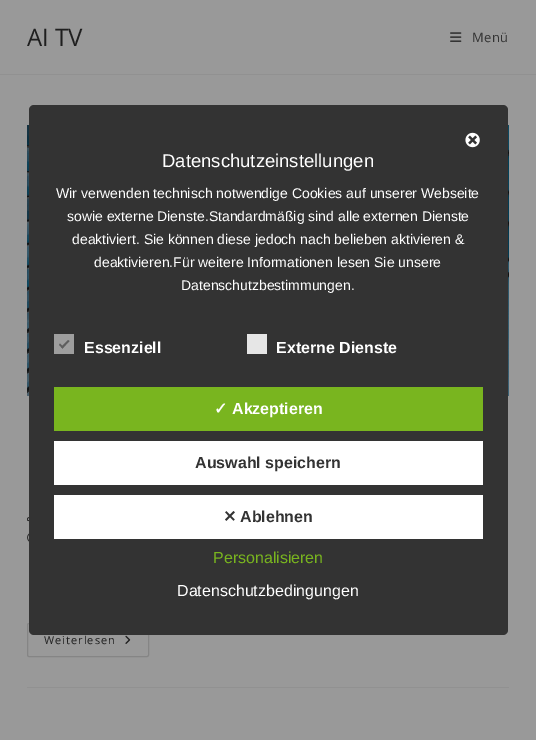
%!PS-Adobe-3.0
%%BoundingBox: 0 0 536 740
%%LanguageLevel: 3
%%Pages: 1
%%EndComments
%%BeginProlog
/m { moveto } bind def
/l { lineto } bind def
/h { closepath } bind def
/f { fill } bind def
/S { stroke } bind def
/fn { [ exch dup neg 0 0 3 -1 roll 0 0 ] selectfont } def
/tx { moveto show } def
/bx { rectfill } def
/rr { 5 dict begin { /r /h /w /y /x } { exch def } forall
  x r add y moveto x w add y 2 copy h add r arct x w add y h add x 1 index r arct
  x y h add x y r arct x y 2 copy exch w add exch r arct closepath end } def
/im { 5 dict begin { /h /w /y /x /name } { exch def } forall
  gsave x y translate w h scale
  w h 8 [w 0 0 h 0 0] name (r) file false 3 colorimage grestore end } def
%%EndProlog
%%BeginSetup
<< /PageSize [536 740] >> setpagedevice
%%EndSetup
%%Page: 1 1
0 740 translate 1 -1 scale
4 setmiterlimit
0.6 setgray
0 0 536 740 bx
0.569 setgray
0 74 536 1 bx
/OpenSans-Regular 24 fn
0.122 setgray
(AI TV) 27 46 tx
(image0.raw) 450 32 12 10 im
/OpenSans-Regular 13 fn
0.2 setgray
472 42 m 0.5 0 (Menü) ashow
0.569 setgray
27 687 482 1 bx
(image1.raw) 27 125 482 271 im
(image2.raw) 27 517 2 5 im
(image3.raw) 27 533 2 9 im
0.522 setgray
27.5 623.5 121 33 1.5 rr S
/OpenSans-Regular 11 fn
0.122 setgray
44 644 m 1 0 (Weiterlesen) ashow
(image4.raw) 125 635 6 9 im
0.2 setgray
29 105 479 530 5 rr f
(image5.raw) 465 132 15 16 im
/LiberationSans-Regular 18.5 fn
1 setgray
(Datenschutzeinstellungen) 162 167 tx
/LiberationSans-Regular 14 fn
(Wir verwenden technisch notwendige Cookies auf unserer Webseite) 56 198 tx
(sowie externe Dienste.Standardmäßig sind alle externen Dienste) 67 221 tx
(deaktiviert. Sie können diese jedoch nach belieben aktivieren &) 72 244 tx
(deaktivieren.Für weitere Informationen lesen Sie unsere) 94 267 tx
(Datenschutzbestimmungen.) 181 290 tx
0.62 setgray
54 334 20 20 bx
0.369 setgray
68 340 m 69.5 341 l 62.5 348.5 l 61 347 l h f
60 343.5 m 63.5 347 l 62.5 348.5 l 59 345 l h f
/LiberationSans-Bold 16 fn
1 setgray
(Essenziell) 84 353 tx
0.902 setgray
247 334 20 20 bx
1 setgray
(Externe Dienste) 276 353 tx
0.475 0.71 0.122 setrgbcolor
54 387 429 44 bx
/DejaVuSans-Bold 16 fn
1 setgray
(✓) 214 414 tx
/LiberationSans-Bold 16 fn
(Akzeptieren) 232 414 tx
54 441 429 44 bx
0.2 setgray
(Auswahl speichern) 195 468 tx
1 setgray
54 495 429 44 bx
/DejaVuSans-Bold 16 fn
0.2 setgray
(✕) 223 522 tx
/LiberationSans-Bold 16 fn
(Ablehnen) 240 522 tx
/LiberationSans-Regular 16 fn
0.475 0.71 0.122 setrgbcolor
(Personalisieren) 213 563 tx
1 setgray
(Datenschutzbedingungen) 177 596 tx
showpage
%%EOF
